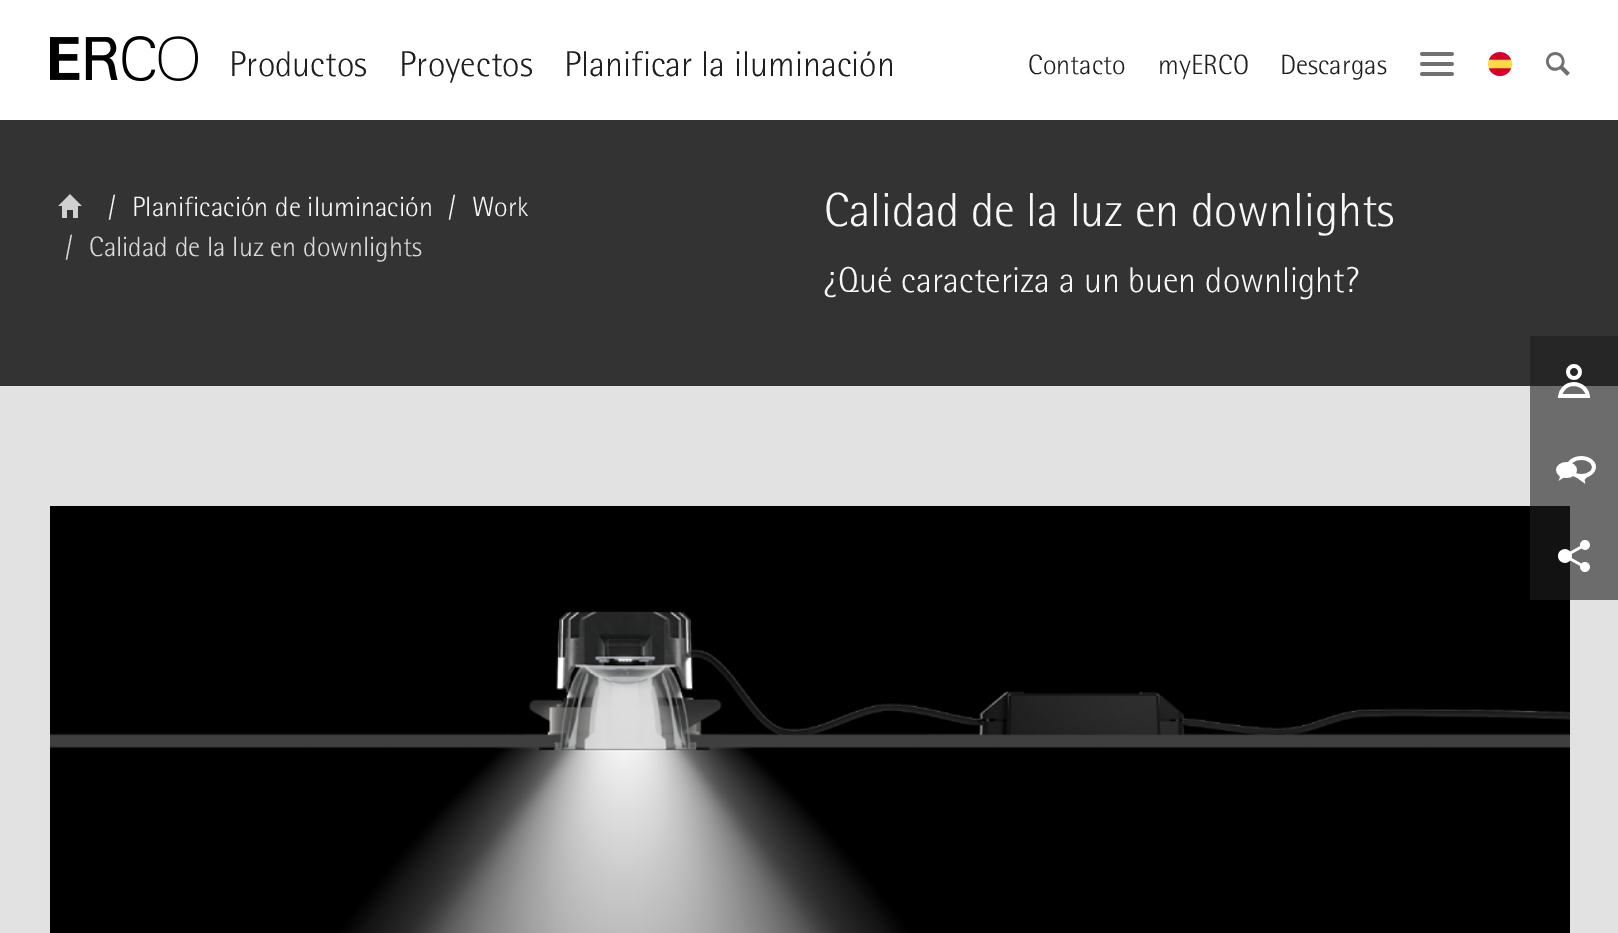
%!PS-Adobe-3.0
%%BoundingBox: 0 0 1618 933
%%LanguageLevel: 3
%%Pages: 1
%%EndComments
%%BeginProlog
/fn { [ exch dup neg 0 0 3 -1 roll 0 0 ] selectfont } def
/tx { moveto show } def
/bx { rectfill } def
/al { dup .setfillconstantalpha .setstrokeconstantalpha } def
/im { 5 dict begin { /h /w /y /x /name } { exch def } forall
  gsave x y translate w h scale
  w h 8 [w 0 0 h 0 0] name (r) file false 3 colorimage grestore end } def
%%EndProlog
%%BeginSetup
<< /PageSize [1618 933] /PageUsesTransparency true >> setpagedevice
%%EndSetup
%%Page: 1 1
0 .pushpdf14devicefilter
0 933 translate 1 -1 scale
4 setmiterlimit
0.886 setgray
0 0 1618 933 bx
0.424 setgray
1530 386 88 38 bx
1 setgray
0 0 1618 120 bx
(image0.raw) 50 36 148 46 im
/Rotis-Light 36 fn
0.122 setgray
(Productos) 229 76 tx
(Proyectos) 399 76 tx
(Planificar la iluminación) 564 76 tx
/Rotis-Light 28 fn
(Contacto) 1028 74 tx
(myERCO) 1158 74 tx
(Descargas) 1280 74 tx
(image1.raw) 1420 52 34 24 im
(image2.raw) 1488 52 24 24 im
(image3.raw) 1546 52 24 24 im
0.2 setgray
0 120 1618 266 bx
0.149 setgray
1530 336 88 50 bx
(image4.raw) 58 194 24 24 im
0.969 setgray
(/) 108 216 tx
(Planificación de iluminación) 132 216 tx
(/) 448 216 tx
(Work) 472 216 tx
0.855 setgray
(/) 65 256 tx
(Calidad de la luz en downlights) 89 256 tx
/Rotis-Light 48 fn
0.969 setgray
(Calidad de la luz en downlights) 824 226 tx
/Rotis-Light 36 fn
(¿Qué caracteriza a un buen downlight?) 824 292 tx
(image5.raw) 1557 364 34 34 im
(image8.raw) 50 506 1520 427 im
0.6 al
0.118 setgray
1530 424 88 88 bx
1 al
(image6.raw) 1556 456 40 28 im
0.6 al
1530 512 88 88 bx
1 al
(image7.raw) 1558 540 32 32 im
.poppdf14devicefilter showpage
%%EOF
